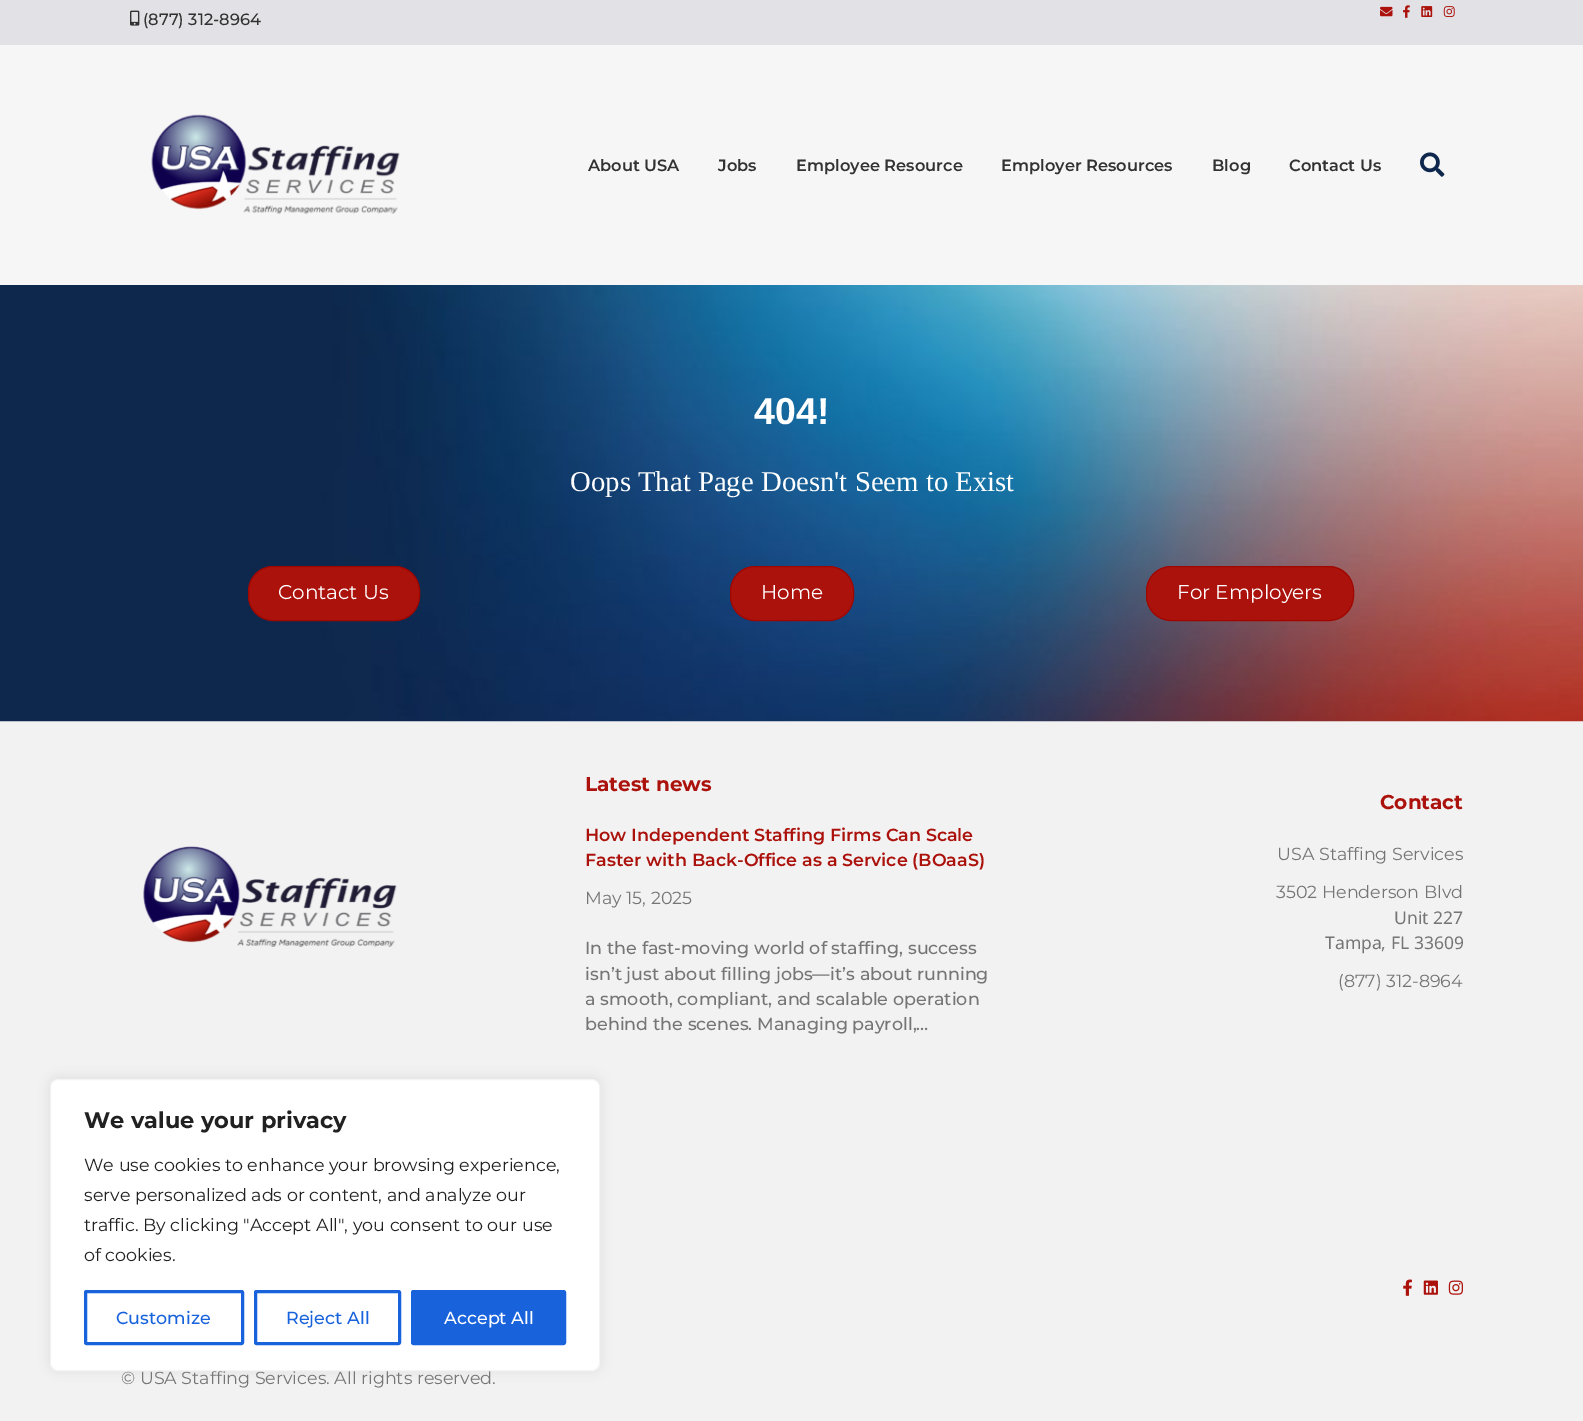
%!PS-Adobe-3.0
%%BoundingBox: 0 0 1583 1421
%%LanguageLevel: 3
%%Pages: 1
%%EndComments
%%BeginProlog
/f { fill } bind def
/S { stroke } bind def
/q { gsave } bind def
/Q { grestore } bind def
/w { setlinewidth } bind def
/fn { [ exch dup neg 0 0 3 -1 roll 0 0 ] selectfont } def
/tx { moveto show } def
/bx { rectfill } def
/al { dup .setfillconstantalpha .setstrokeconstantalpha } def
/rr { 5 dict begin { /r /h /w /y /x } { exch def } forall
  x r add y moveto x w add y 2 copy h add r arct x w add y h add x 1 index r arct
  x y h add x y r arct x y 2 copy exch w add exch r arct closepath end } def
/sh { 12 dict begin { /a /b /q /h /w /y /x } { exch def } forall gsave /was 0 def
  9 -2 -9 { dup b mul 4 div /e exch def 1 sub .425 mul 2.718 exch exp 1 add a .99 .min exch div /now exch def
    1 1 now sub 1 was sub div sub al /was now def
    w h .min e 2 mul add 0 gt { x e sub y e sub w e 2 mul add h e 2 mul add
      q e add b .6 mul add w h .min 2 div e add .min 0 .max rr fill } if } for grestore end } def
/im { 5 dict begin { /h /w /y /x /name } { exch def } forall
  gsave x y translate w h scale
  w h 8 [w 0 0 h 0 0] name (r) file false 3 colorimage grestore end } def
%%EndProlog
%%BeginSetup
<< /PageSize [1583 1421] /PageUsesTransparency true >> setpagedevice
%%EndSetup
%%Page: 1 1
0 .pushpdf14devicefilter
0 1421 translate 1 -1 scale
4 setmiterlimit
0.949 setgray
0 0 1583 1421 bx
0.886 0.886 0.902 setrgbcolor
0 0 1583 45 bx
(image0.raw) 130 10 10 16 im
/Montserrat-Medium 16.25 fn
0.196 setgray
(\(877\) 312-8964) 143 25 tx
(image1.raw) 1380 6 13 11 im
(image2.raw) 1403 5 7 13 im
(image3.raw) 1421 6 12 11 im
(image4.raw) 1443 6 12 11 im
0.965 setgray
0 45 1583 240 bx
(image5.raw) 151 114 249 100 im
/Montserrat-SemiBold 16.25 fn
0.196 setgray
(About USA) 588 171 tx
(Jobs) 718 171 tx
(Employee Resource) 796 171 tx
(Employer Resources) 1001 171 tx
(Blog) 1212 171 tx
(Contact Us) 1289 171 tx
(image6.raw) 1420 152 25 25 im
(image7.raw) 0 285 1583 437 im
/LiberationSans-Bold 37.5 fn
1 setgray
(404!) 754 424 tx
/LiberationSerif-Regular 28.75 fn
(Oops That Page Doesn't Seem to Exist) 570 491 tx
0.671 0.071 0.047 setrgbcolor
248.5 566.5 171 54 24.5 rr q f Q
0.624 0.024 0 setrgbcolor
S
/Montserrat-Regular 20 fn
1 setgray
(Contact Us) 278 599 tx
0.671 0.071 0.047 setrgbcolor
730.5 566.5 123 54 24.5 rr q f Q
0.624 0.024 0 setrgbcolor
S
1 setgray
(Home) 761 599 tx
0.671 0.071 0.047 setrgbcolor
1146.5 566.5 207 54 24.5 rr q f Q
0.624 0.024 0 setrgbcolor
S
1 setgray
(For Employers) 1177 599 tx
(image8.raw) 143 846 254 101 im
/Montserrat-Bold 20 fn
0.671 0.071 0.047 setrgbcolor
(Latest news) 585 791 tx
/Montserrat-SemiBold 17.5 fn
(How Independent Staffing Firms Can Scale) 585 841 tx
(Faster with Back-Office as a Service \(BOaaS\)) 585 866 tx
/Montserrat-Regular 17.5 fn
0.459 setgray
(May 15, 2025) 585 904 tx
/Montserrat-Medium 17.5 fn
(In the fast-moving world of staffing, success) 585 954 tx
(isn’t just about filling jobs—it’s about running) 585 980 tx
(a smooth, compliant, and scalable operation) 585 1005 tx
(behind the scenes. Managing payroll,…) 585 1030 tx
/Montserrat-Bold 20 fn
0.671 0.071 0.047 setrgbcolor
(Contact) 1380 809 tx
/Montserrat-Regular 17.5 fn
0.459 setgray
(USA Staffing Services) 1277 860 tx
(3502 Henderson Blvd) 1276 898 tx
/NotoSans-Regular 17.5 fn
(Unit 227) 1394 924 tx
(Tampa, FL 33609) 1325 949 tx
/Montserrat-Regular 17.5 fn
(\(877\) 312-8964) 1338 987 tx
(image9.raw) 1403 1279 9 17 im
(image10.raw) 1423 1280 15 15 im
(image11.raw) 1448 1280 15 15 im
(© USA Staffing Services. All rights reserved.) 121 1384 tx
0.675 0.671 0.671 setrgbcolor
50 1078 550 292 8 6 0.3 sh
1 setgray
50.5 1079.5 549 291 7.5 rr q f Q
0.957 setgray
S
/Montserrat-Bold 22.5 fn
0.129 setgray
(We value your privacy) 84 1128 tx
/Montserrat-Regular 17.5 fn
(We use cookies to enhance your browsing experience,) 84 1171 tx
(serve personalized ads or content, and analyze our) 84 1201 tx
(traffic. By clicking "Accept All", you consent to our use) 84 1231 tx
(of cookies.) 84 1261 tx
0.094 0.388 0.863 setrgbcolor
3 w
85.5 1291.5 157 52 1 rr S
/Montserrat-Medium 17.5 fn
(Customize) 116 1324 tx
255.5 1291.5 144 52 1 rr S
(Reject All) 286 1324 tx
412.5 1291.5 152 52 1 rr q f Q
S
1 setgray
(Accept All) 444 1324 tx
.poppdf14devicefilter showpage
%%EOF
